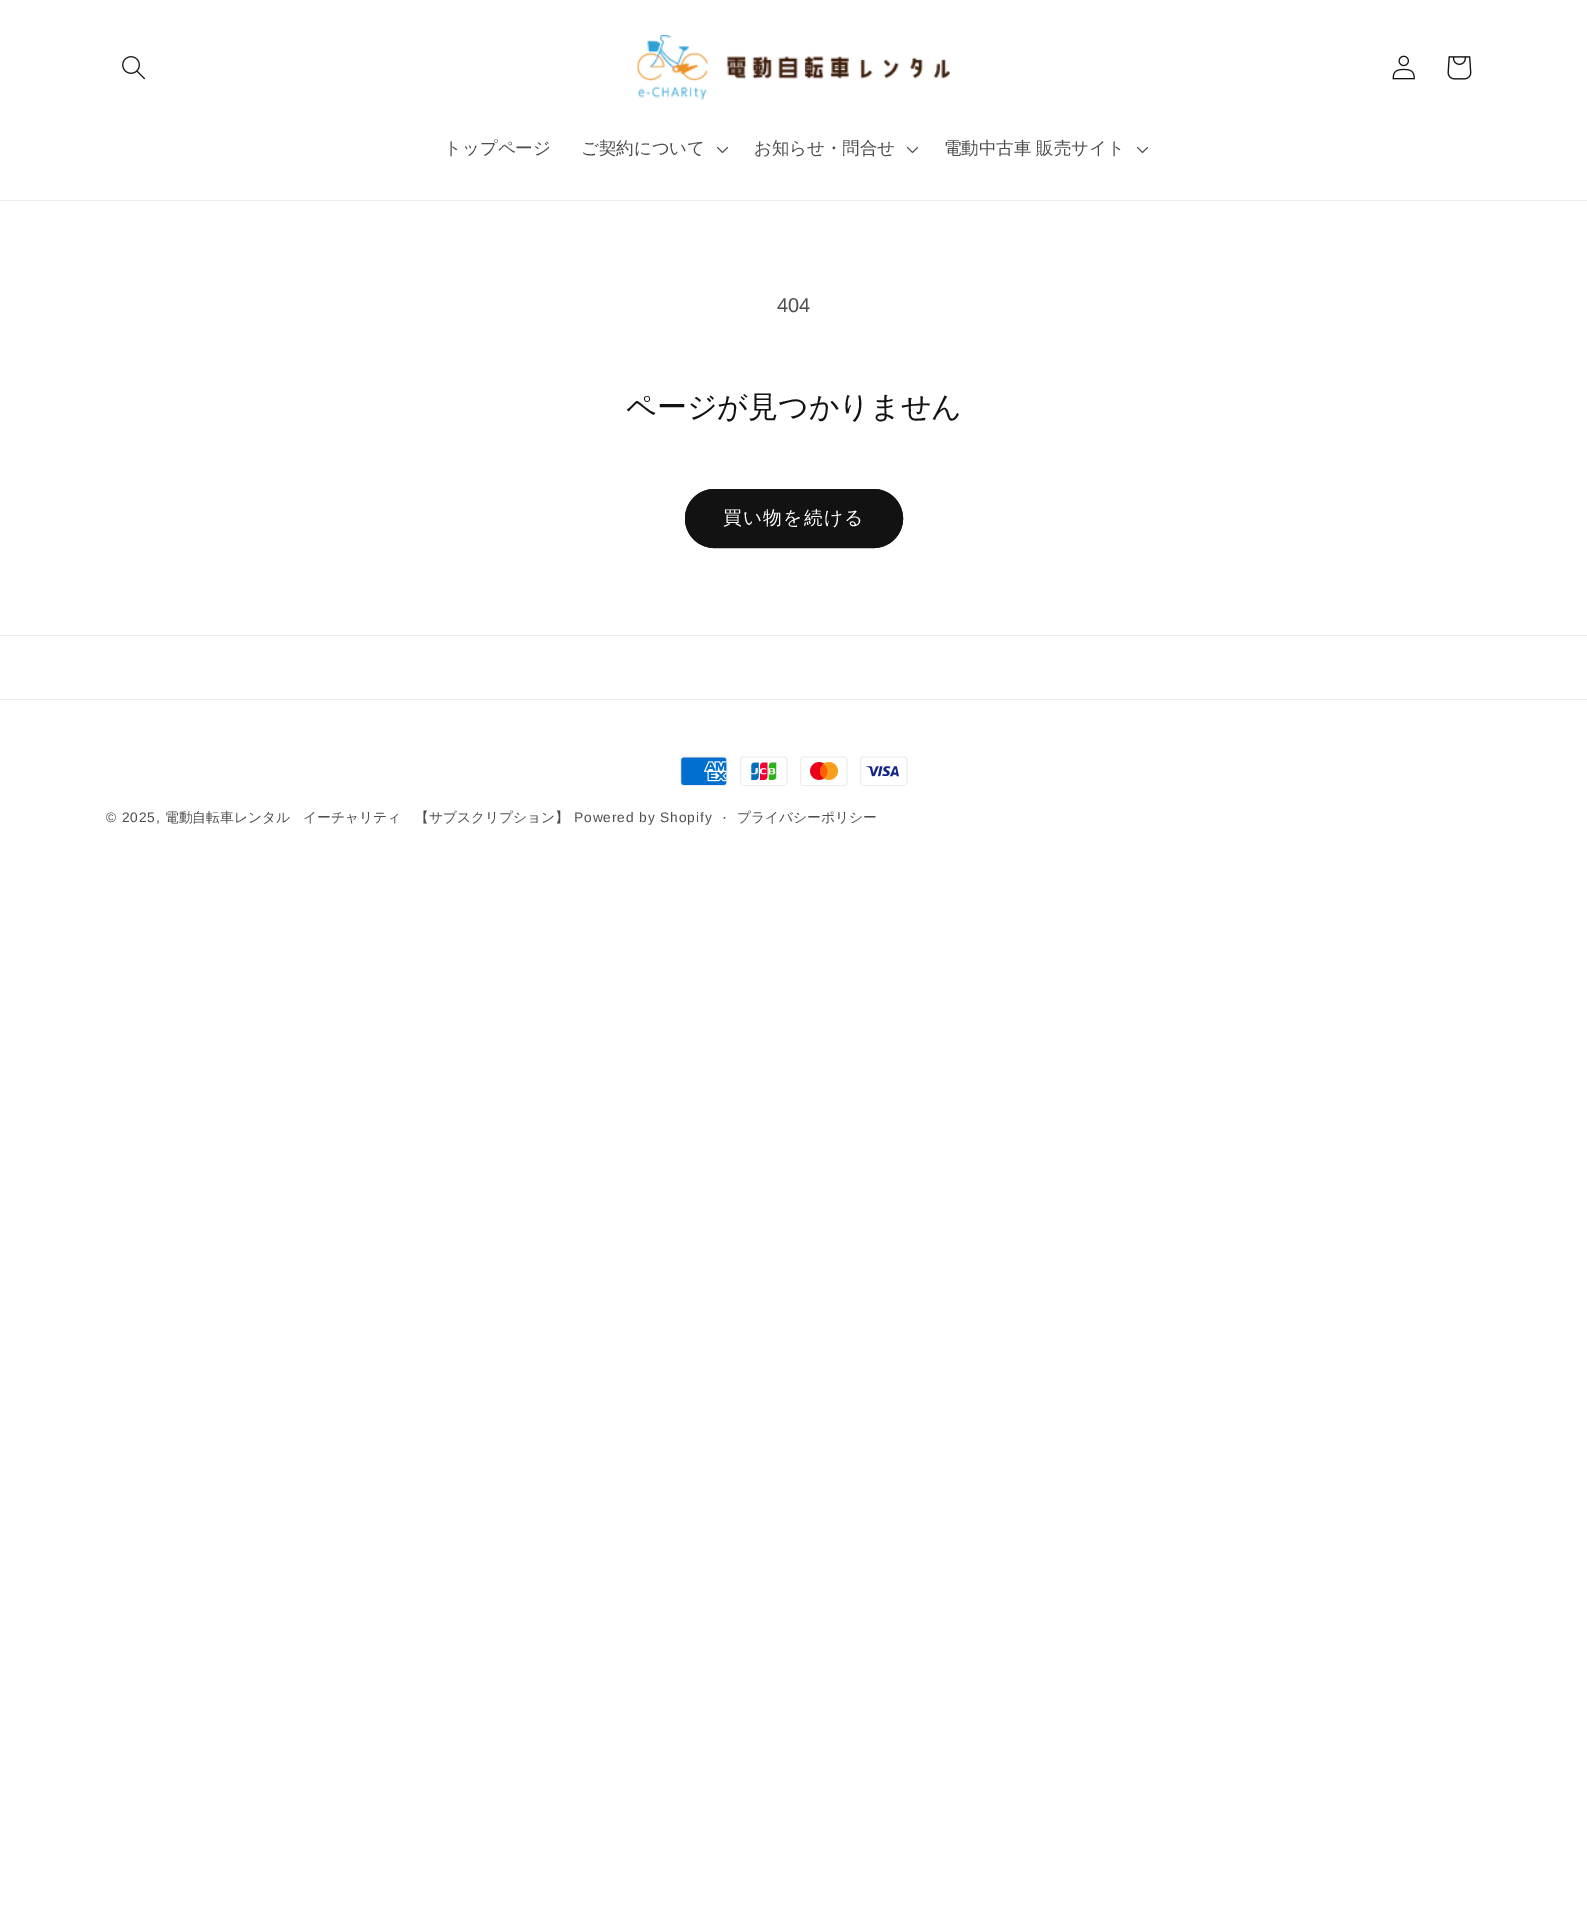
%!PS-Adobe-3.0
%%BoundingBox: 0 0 1587 1924
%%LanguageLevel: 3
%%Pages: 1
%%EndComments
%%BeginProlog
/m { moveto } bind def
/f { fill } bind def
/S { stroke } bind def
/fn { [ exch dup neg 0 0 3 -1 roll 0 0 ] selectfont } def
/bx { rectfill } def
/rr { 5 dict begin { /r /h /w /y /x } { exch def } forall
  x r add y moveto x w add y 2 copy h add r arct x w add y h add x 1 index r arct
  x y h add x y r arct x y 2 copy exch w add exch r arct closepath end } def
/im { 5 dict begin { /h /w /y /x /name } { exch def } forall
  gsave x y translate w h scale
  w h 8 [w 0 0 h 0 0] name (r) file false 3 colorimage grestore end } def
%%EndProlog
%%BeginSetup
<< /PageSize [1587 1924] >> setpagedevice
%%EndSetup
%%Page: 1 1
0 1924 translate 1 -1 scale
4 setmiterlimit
1 setgray
0 0 1587 1924 bx
0.925 setgray
0 200 1587 1 bx
(image0.raw) 122 56 23 24 im
(image1.raw) 637 35 313 65 im
(image2.raw) 1392 55 23 25 im
(image3.raw) 1447 56 25 24 im
/WenQuanYiZenHei-Medium 17.5 fn
0.302 setgray
444 154 m -0.05 0 (トップページ) ashow
581 154 m -0.05 0 (ご契約について) ashow
(image4.raw) 716 146 13 8 im
754 154 m -0.05 0 (お知らせ・問合せ) ashow
(image4.raw) 906 146 13 8 im
944 154 m -0.05 0 (電動中古車 販売サイト) ashow
(image4.raw) 1136 146 13 8 im
/LiberationSans-Regular 20 fn
777 312 m -0.05 0 (404) ashow
/WenQuanYiZenHei-Medium 30 fn
0.071 setgray
626 417 m -0.05 0 (ページが見つかりません) ashow
685 489 218 59 29.5 rr f
685.5 489.5 217 58 29 rr S
/WenQuanYiZenHei-Medium 18.75 fn
1 setgray
723 524 m 1.25 0 (買い物を続ける) ashow
0.925 setgray
0 635 1587 1 bx
0 699 1587 1 bx
(image5.raw) 680 756 48 30 im
(image6.raw) 740 756 48 30 im
(image7.raw) 800 756 48 30 im
(image8.raw) 860 756 48 30 im
/LiberationSans-Regular 13.75 fn
0.302 setgray
106 822 m 0.9 0 (© 2025,) ashow
/WenQuanYiZenHei-Medium 13.75 fn
165 822 m -0.05 0 (電動自転車レンタル　イーチャリティ　【サブスクリプション】) ashow
/LiberationSans-Regular 13.75 fn
574 822 m 0.9 0 (Powered by Shopify) ashow
/LiberationSans-Regular 15 fn
722 822 m -0.05 0 (·) ashow
/WenQuanYiZenHei-Medium 13.75 fn
737 822 m -0.05 0 (プライバシーポリシー) ashow
showpage
%%EOF
